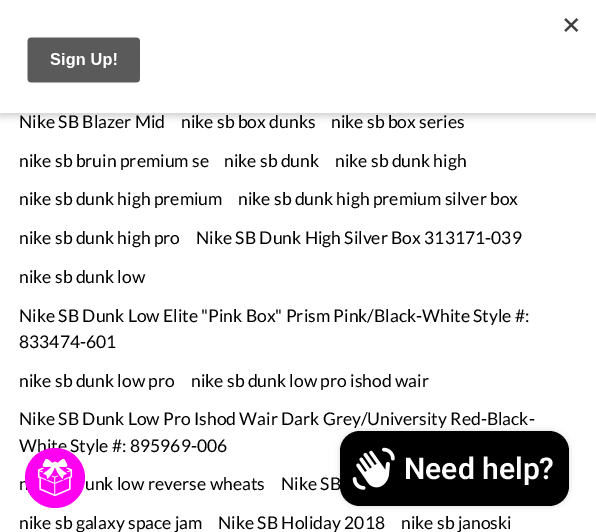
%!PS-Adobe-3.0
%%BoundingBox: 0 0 596 532
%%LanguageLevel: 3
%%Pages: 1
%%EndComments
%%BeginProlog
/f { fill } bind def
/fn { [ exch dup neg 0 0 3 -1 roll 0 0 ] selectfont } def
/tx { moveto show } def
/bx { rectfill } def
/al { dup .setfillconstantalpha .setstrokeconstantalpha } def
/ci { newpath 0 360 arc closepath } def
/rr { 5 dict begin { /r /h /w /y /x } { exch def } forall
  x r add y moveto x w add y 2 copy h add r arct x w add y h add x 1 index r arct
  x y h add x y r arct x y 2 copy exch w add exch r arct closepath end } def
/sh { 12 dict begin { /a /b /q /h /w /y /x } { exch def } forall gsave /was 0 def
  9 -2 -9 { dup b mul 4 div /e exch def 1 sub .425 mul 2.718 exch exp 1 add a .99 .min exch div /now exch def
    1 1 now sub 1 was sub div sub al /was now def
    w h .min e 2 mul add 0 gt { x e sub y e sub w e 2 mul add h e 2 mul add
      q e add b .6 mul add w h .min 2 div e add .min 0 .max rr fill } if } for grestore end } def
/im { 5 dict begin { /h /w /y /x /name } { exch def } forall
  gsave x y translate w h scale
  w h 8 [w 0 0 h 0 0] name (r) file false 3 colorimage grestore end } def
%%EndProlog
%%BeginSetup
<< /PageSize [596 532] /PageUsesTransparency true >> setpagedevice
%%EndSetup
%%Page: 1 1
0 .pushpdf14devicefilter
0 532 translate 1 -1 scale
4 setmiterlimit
1 setgray
0 0 596 532 bx
0 setgray
0 4 596 112 0 4 0.2 sh
1 setgray
0 0 596 113 bx
(image0.raw) 27 18 552 65 im
/Lato-Regular 17.5 fn
0 setgray
(Nike SB Blazer Mid) 19 128 tx
(nike sb box dunks) 181 128 tx
(nike sb box series) 331 128 tx
(nike sb bruin premium se) 19 167 tx
(nike sb dunk) 224 167 tx
(nike sb dunk high) 335 167 tx
(nike sb dunk high premium) 19 205 tx
(nike sb dunk high premium silver box) 238 205 tx
(nike sb dunk high pro) 19 244 tx
(Nike SB Dunk High Silver Box 313171-039) 196 244 tx
(nike sb dunk low) 19 283 tx
(Nike SB Dunk Low Elite "Pink Box" Prism Pink/Black-White Style #:) 19 322 tx
(833474-601) 19 348 tx
(nike sb dunk low pro) 19 387 tx
(nike sb dunk low pro ishod wair) 191 387 tx
(Nike SB Dunk Low Pro Ishod Wair Dark Grey/University Red-Black-) 19 425 tx
(White Style #: 895969-006) 19 452 tx
(n) 19 490 tx
(unk low reverse wheats) 85 490 tx
(Nike SB) 281 490 tx
(nike sb galaxy space jam) 19 529 tx
(Nike SB Holiday 2018) 218 529 tx
(nike sb janoski) 401 529 tx
1 0 0.941 setrgbcolor
55 478 30 ci f
(image1.raw) 37 459 36 37 im
0 setgray
340 431 229 75 20 3 0.15 sh
340 431 229 75 20 rr f
(image2.raw) 352 447 43 43 im
/Roboto-SemiBold 30 fn
1 setgray
(Need help?) 404 479 tx
.poppdf14devicefilter showpage
%%EOF
